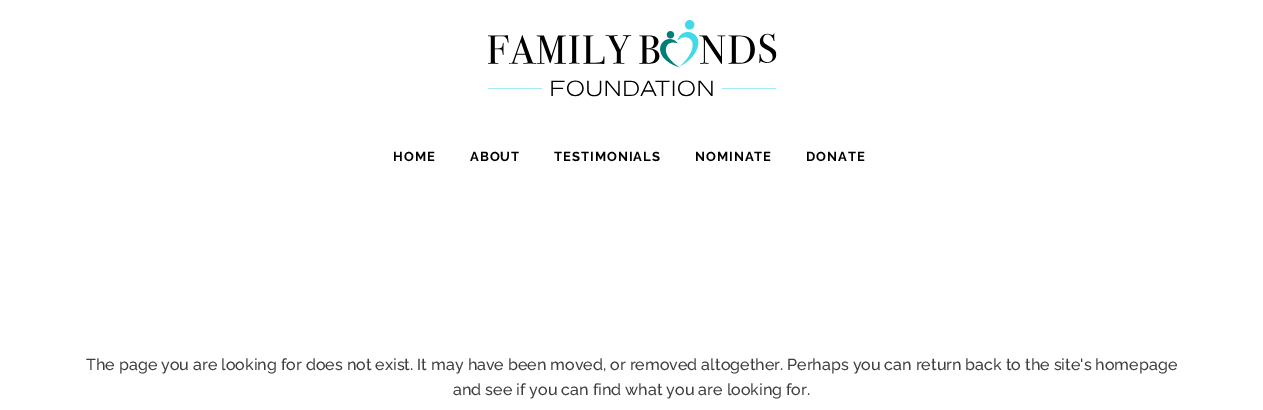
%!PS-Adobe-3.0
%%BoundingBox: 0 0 1263 410
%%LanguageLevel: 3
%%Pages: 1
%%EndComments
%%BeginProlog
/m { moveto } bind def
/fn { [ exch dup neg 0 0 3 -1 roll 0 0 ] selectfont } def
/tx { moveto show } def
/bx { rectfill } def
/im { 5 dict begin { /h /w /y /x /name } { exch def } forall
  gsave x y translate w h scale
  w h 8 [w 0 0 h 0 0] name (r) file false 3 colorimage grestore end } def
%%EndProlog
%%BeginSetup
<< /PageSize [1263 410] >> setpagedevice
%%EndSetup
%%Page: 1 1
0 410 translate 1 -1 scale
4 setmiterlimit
1 setgray
0 0 1263 410 bx
(image0.raw) 488 20 289 77 im
/Raleway-Bold 13 fn
0 setgray
393 161 m 1 0 (HOME) ashow
470 161 m 1 0 (ABOUT) ashow
554 161 m 1 0 (TESTIMONIALS) ashow
695 161 m 1 0 (NOMINATE) ashow
806 161 m 1 0 (DONATE) ashow
/Raleway-Medium 16 fn
0.247 setgray
(The page you are looking for does not exist. It may have been moved, or removed altogether. Perhaps you can return back to the site's homepage) 86 370 tx
(and see if you can find what you are looking for.) 453 395 tx
showpage
%%EOF
